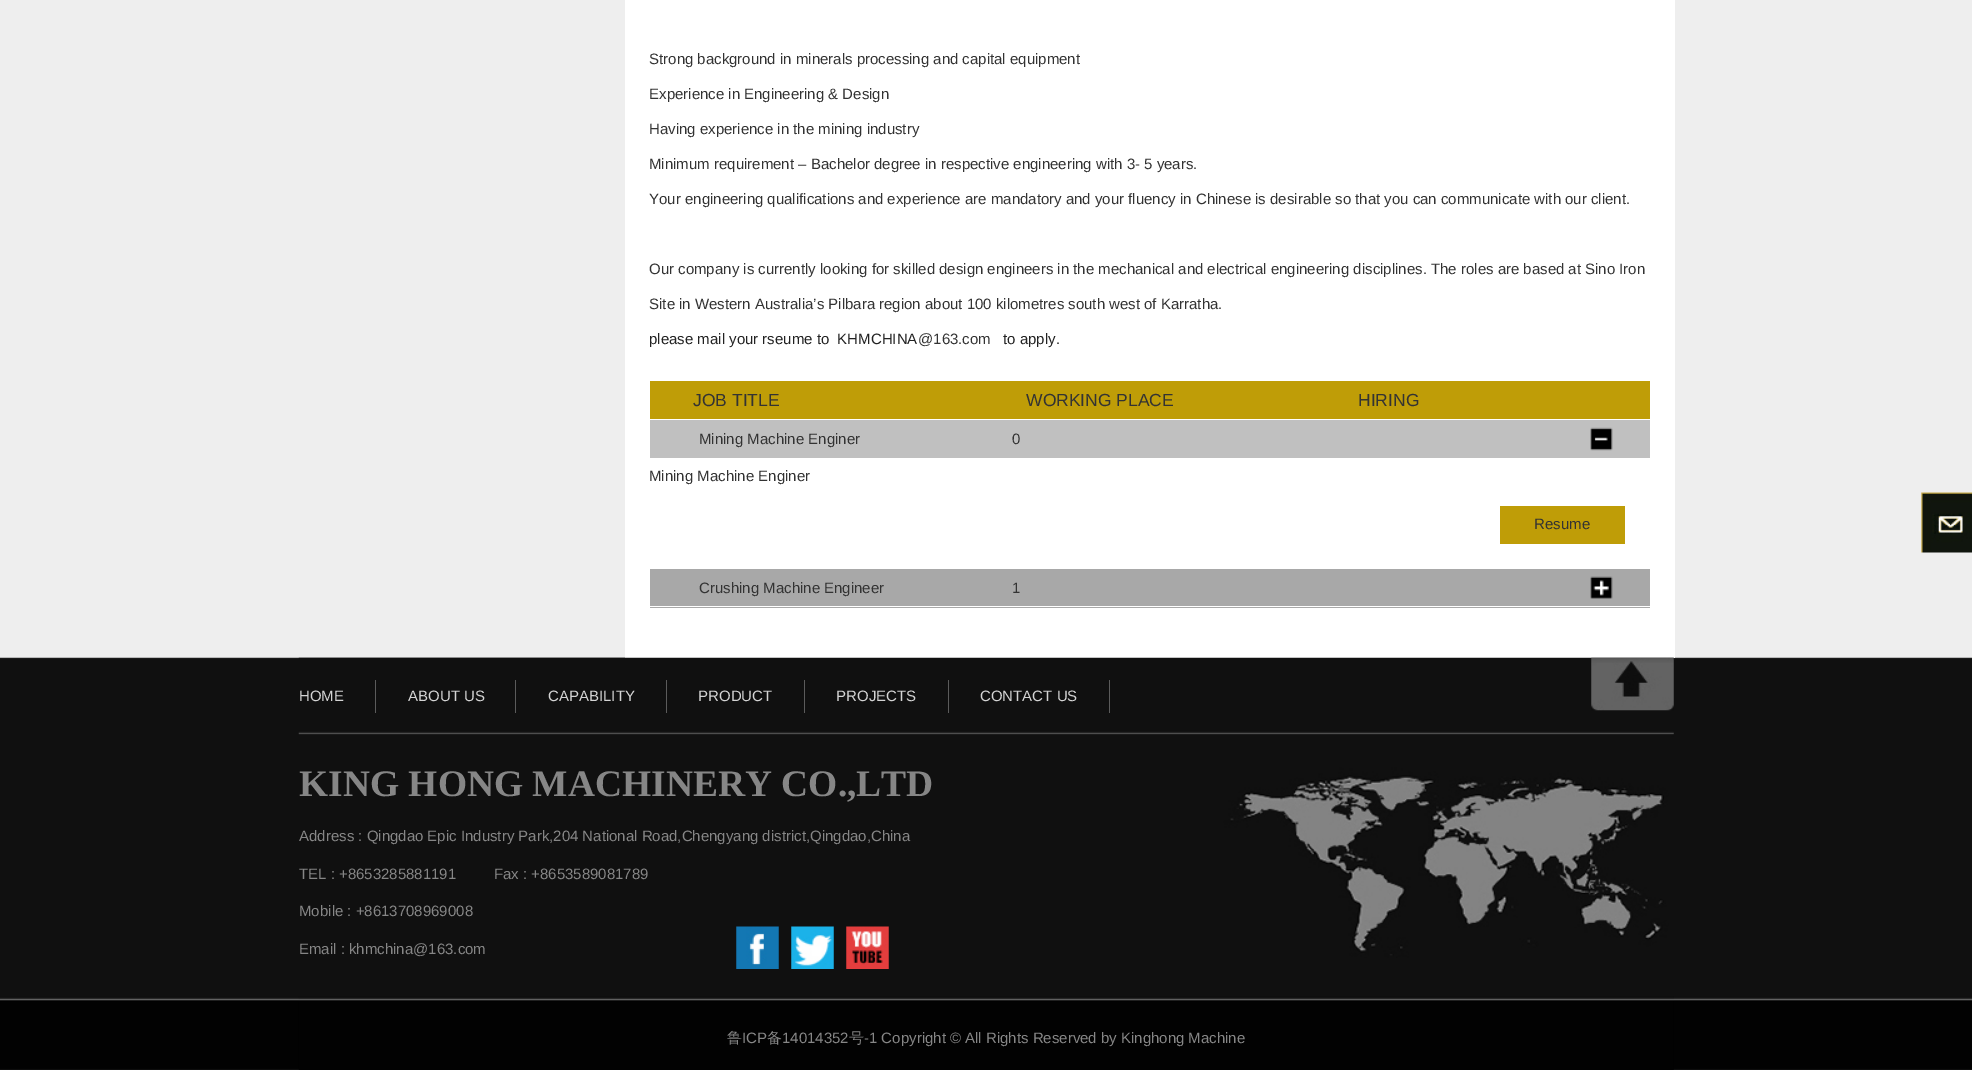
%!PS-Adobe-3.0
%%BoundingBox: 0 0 1972 1070
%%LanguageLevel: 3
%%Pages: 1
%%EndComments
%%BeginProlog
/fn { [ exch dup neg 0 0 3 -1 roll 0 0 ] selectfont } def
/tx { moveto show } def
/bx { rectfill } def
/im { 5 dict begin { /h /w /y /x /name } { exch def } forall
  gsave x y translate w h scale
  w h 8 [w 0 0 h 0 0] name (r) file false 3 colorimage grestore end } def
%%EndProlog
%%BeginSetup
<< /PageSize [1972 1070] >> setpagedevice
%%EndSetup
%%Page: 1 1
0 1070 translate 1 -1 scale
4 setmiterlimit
0.933 setgray
0 0 1972 1070 bx
(image2.raw) 0 657 1972 413 im
1 setgray
625 0 1050 658 bx
/LiberationSans-Regular 15 fn
0.2 setgray
(Strong background in minerals processing and capital equipment) 649 64 tx
(Experience in Engineering & Design) 649 99 tx
(Having experience in the mining industry) 649 134 tx
(Minimum requirement – Bachelor degree in respective engineering with 3- 5 years.) 649 169 tx
(Your engineering qualifications and experience are mandatory and your fluency in Chinese is desirable so that you can communicate with our client.) 649 204 tx
(Our company is currently looking for skilled design engineers in the mechanical and electrical engineering disciplines. The roles are based at Sino Iron) 649 274 tx
(Site in Western Australia’s Pilbara region about 100 kilometres south west of Karratha.) 649 309 tx
0.133 setgray
(please mail your rseume to  KHMCHINA) 649 344 tx
0.2 setgray
(@163.com) 918 344 tx
0.133 setgray
(to apply.) 1003 344 tx
0.749 0.616 0.027 setrgbcolor
650 381 1000 38 bx
/LiberationSans-Regular 17.5 fn
0.2 setgray
(JOB TITLE) 693 406 tx
(WORKING PLACE) 1026 406 tx
(HIRING) 1358 406 tx
0.753 setgray
650 420 1000 38 bx
(image0.raw) 1590 427 23 24 im
/LiberationSans-Regular 15 fn
0.2 setgray
(Mining Machine Enginer) 699 444 tx
(0) 1012 444 tx
(Mining Machine Enginer) 649 481 tx
0.749 0.616 0.027 setrgbcolor
1500 506 125 38 bx
0.2 setgray
(Resume) 1534 529 tx
0.659 setgray
650 569 1000 39 bx
(image1.raw) 1590 576 23 23 im
1 setgray
650 606 1000 1 bx
0.2 setgray
(Crushing Machine Engineer) 699 593 tx
(1) 1012 593 tx
(image3.raw) 1921 492 51 61 im
(image4.raw) 298 657 1376 413 im
0.357 setgray
375 680 1 33 bx
0.831 setgray
(HOME) 299 701 tx
0.357 setgray
515 680 1 33 bx
0.831 setgray
(ABOUT US) 408 701 tx
0.357 setgray
666 680 1 33 bx
0.831 setgray
(CAPABILITY) 548 701 tx
0.357 setgray
804 680 1 33 bx
0.831 setgray
(PRODUCT) 698 701 tx
0.357 setgray
948 680 1 33 bx
0.831 setgray
(PROJECTS) 836 701 tx
0.357 setgray
1109 680 1 33 bx
0.831 setgray
(CONTACT US) 980 701 tx
(image5.raw) 1591 657 83 54 im
/LiberationSerif-Bold 37.5 fn
0.525 setgray
(KING HONG MACHINERY CO.,LTD) 299 796 tx
/LiberationSans-Regular 15 fn
(Address : Qingdao Epic Industry Park,204 National Road,Chengyang district,Qingdao,China) 299 841 tx
(TEL : +8653285881191         Fax : +8653589081789) 299 879 tx
(Mobile : +8613708969008) 299 916 tx
(Email : khmchina@163.com) 299 954 tx
(image6.raw) 736 926 43 43 im
(image7.raw) 791 926 43 43 im
(image8.raw) 846 926 43 43 im
/WenQuanYiZenHei-Medium 15 fn
(鲁) 727 1043 tx
/LiberationSans-Regular 15 fn
(ICP) 742 1043 tx
/WenQuanYiZenHei-Medium 15 fn
(备) 767 1043 tx
/LiberationSans-Regular 15 fn
(14014352) 782 1043 tx
/WenQuanYiZenHei-Medium 15 fn
(号) 849 1043 tx
/LiberationSans-Regular 15 fn
(-1 Copyright © All Rights Reserved by Kinghong Machine) 864 1043 tx
showpage
%%EOF
